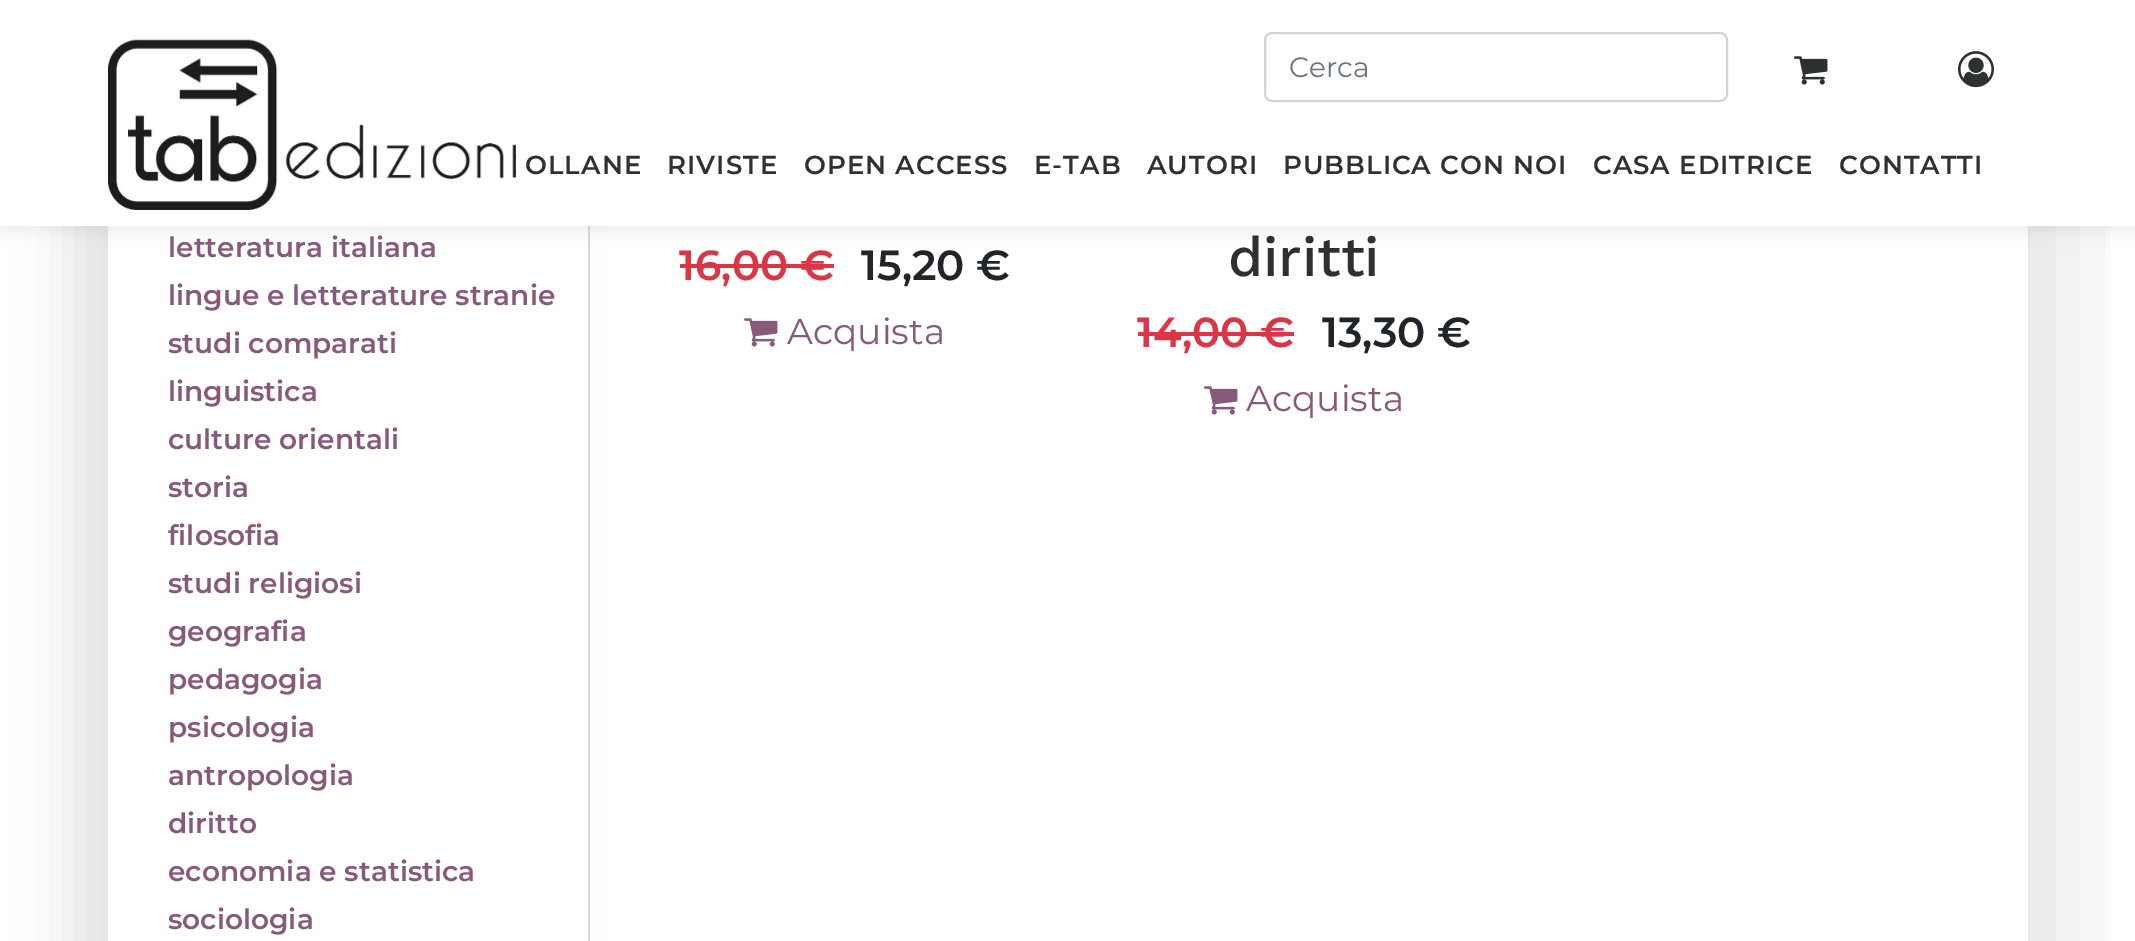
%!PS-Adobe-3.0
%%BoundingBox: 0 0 2135 941
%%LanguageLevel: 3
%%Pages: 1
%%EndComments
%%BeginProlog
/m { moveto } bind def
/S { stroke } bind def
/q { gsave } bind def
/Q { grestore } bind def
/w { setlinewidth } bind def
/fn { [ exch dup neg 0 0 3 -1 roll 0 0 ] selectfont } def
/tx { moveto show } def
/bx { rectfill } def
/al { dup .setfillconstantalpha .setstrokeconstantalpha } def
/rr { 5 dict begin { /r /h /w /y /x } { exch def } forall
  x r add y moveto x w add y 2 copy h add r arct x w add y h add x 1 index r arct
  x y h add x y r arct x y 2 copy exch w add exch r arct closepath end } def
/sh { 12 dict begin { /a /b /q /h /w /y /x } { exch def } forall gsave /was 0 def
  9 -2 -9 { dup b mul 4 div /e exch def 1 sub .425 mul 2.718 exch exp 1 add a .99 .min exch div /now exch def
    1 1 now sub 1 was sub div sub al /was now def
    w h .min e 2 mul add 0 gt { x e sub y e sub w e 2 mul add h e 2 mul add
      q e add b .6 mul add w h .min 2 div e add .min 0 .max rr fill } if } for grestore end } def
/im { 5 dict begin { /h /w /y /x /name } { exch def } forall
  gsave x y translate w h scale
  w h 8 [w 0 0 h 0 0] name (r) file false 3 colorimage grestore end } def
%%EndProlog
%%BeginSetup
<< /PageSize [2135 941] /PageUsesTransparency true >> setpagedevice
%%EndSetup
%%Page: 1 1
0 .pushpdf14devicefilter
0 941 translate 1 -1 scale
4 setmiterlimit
1 setgray
0 0 2135 941 bx
q
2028 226 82 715 rectclip
0 setgray
628 -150 1440 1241 0 50 0.1 sh
Q
0.863 setgray
588 226 2 715 bx
0 setgray
68 -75 480 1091 0 25 0.1 sh
1 setgray
108 226 480 715 bx
0 setgray
-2 -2 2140 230 0 10 0.1 sh
1 setgray
0 0 2135 226 bx
0.808 0.831 0.855 setrgbcolor
2 w
1265 33 462 68 7 rr S
/Montserrat-Regular 28 fn
0.424 0.459 0.49 setrgbcolor
(Cerca) 1289 77 tx
(image0.raw) 1794 56 34 29 im
(image1.raw) 1958 51 36 37 im
(image2.raw) 108 39 408 171 im
/Montserrat-SemiBold 26 fn
0.18 0.192 0.192 setrgbcolor
525 174 m 1 0 (OLLANE) ashow
667 174 m 1 0 (RIVISTE) ashow
804 174 m 1 0 (OPEN ACCESS) ashow
1034 174 m 1 0 (E-TAB) ashow
1147 174 m 1 0 (AUTORI) ashow
1283 174 m 1 0 (PUBBLICA CON NOI) ashow
1593 174 m 1 0 (CASA EDITRICE) ashow
1839 174 m 1 0 (CONTATTI) ashow
/Montserrat-SemiBold 28 fn
0.529 0.353 0.482 setrgbcolor
(letteratura italiana) 168 257 tx
(lingue e letterature stranie) 168 305 tx
(studi comparati) 168 353 tx
(linguistica) 168 401 tx
(culture orientali) 168 449 tx
(storia) 168 497 tx
(filosofia) 168 545 tx
(studi religiosi) 168 593 tx
(geografia) 168 641 tx
(pedagogia) 168 689 tx
(psicologia) 168 737 tx
(antropologia) 168 785 tx
(diritto) 168 833 tx
(economia e statistica) 168 881 tx
(sociologia) 168 929 tx
/Montserrat-SemiBold 42 fn
0.863 0.208 0.271 setrgbcolor
(16,00 €) 679 280 tx
680 264 154 4 bx
0.129 0.145 0.161 setrgbcolor
(15,20 €) 861 280 tx
(image3.raw) 744 318 34 29 im
/Montserrat-Regular 36 fn
0.529 0.353 0.482 setrgbcolor
(Acquista) 787 344 tx
/WorkSans-Medium 56 fn
0.18 0.192 0.192 setrgbcolor
(diritti) 1228 276 tx
/Montserrat-SemiBold 42 fn
0.863 0.208 0.271 setrgbcolor
(14,00 €) 1137 347 tx
1138 332 156 4 bx
0.129 0.145 0.161 setrgbcolor
(13,30 €) 1322 347 tx
(image3.raw) 1204 386 34 29 im
/Montserrat-Regular 36 fn
0.529 0.353 0.482 setrgbcolor
(Acquista) 1246 411 tx
.poppdf14devicefilter showpage
%%EOF
